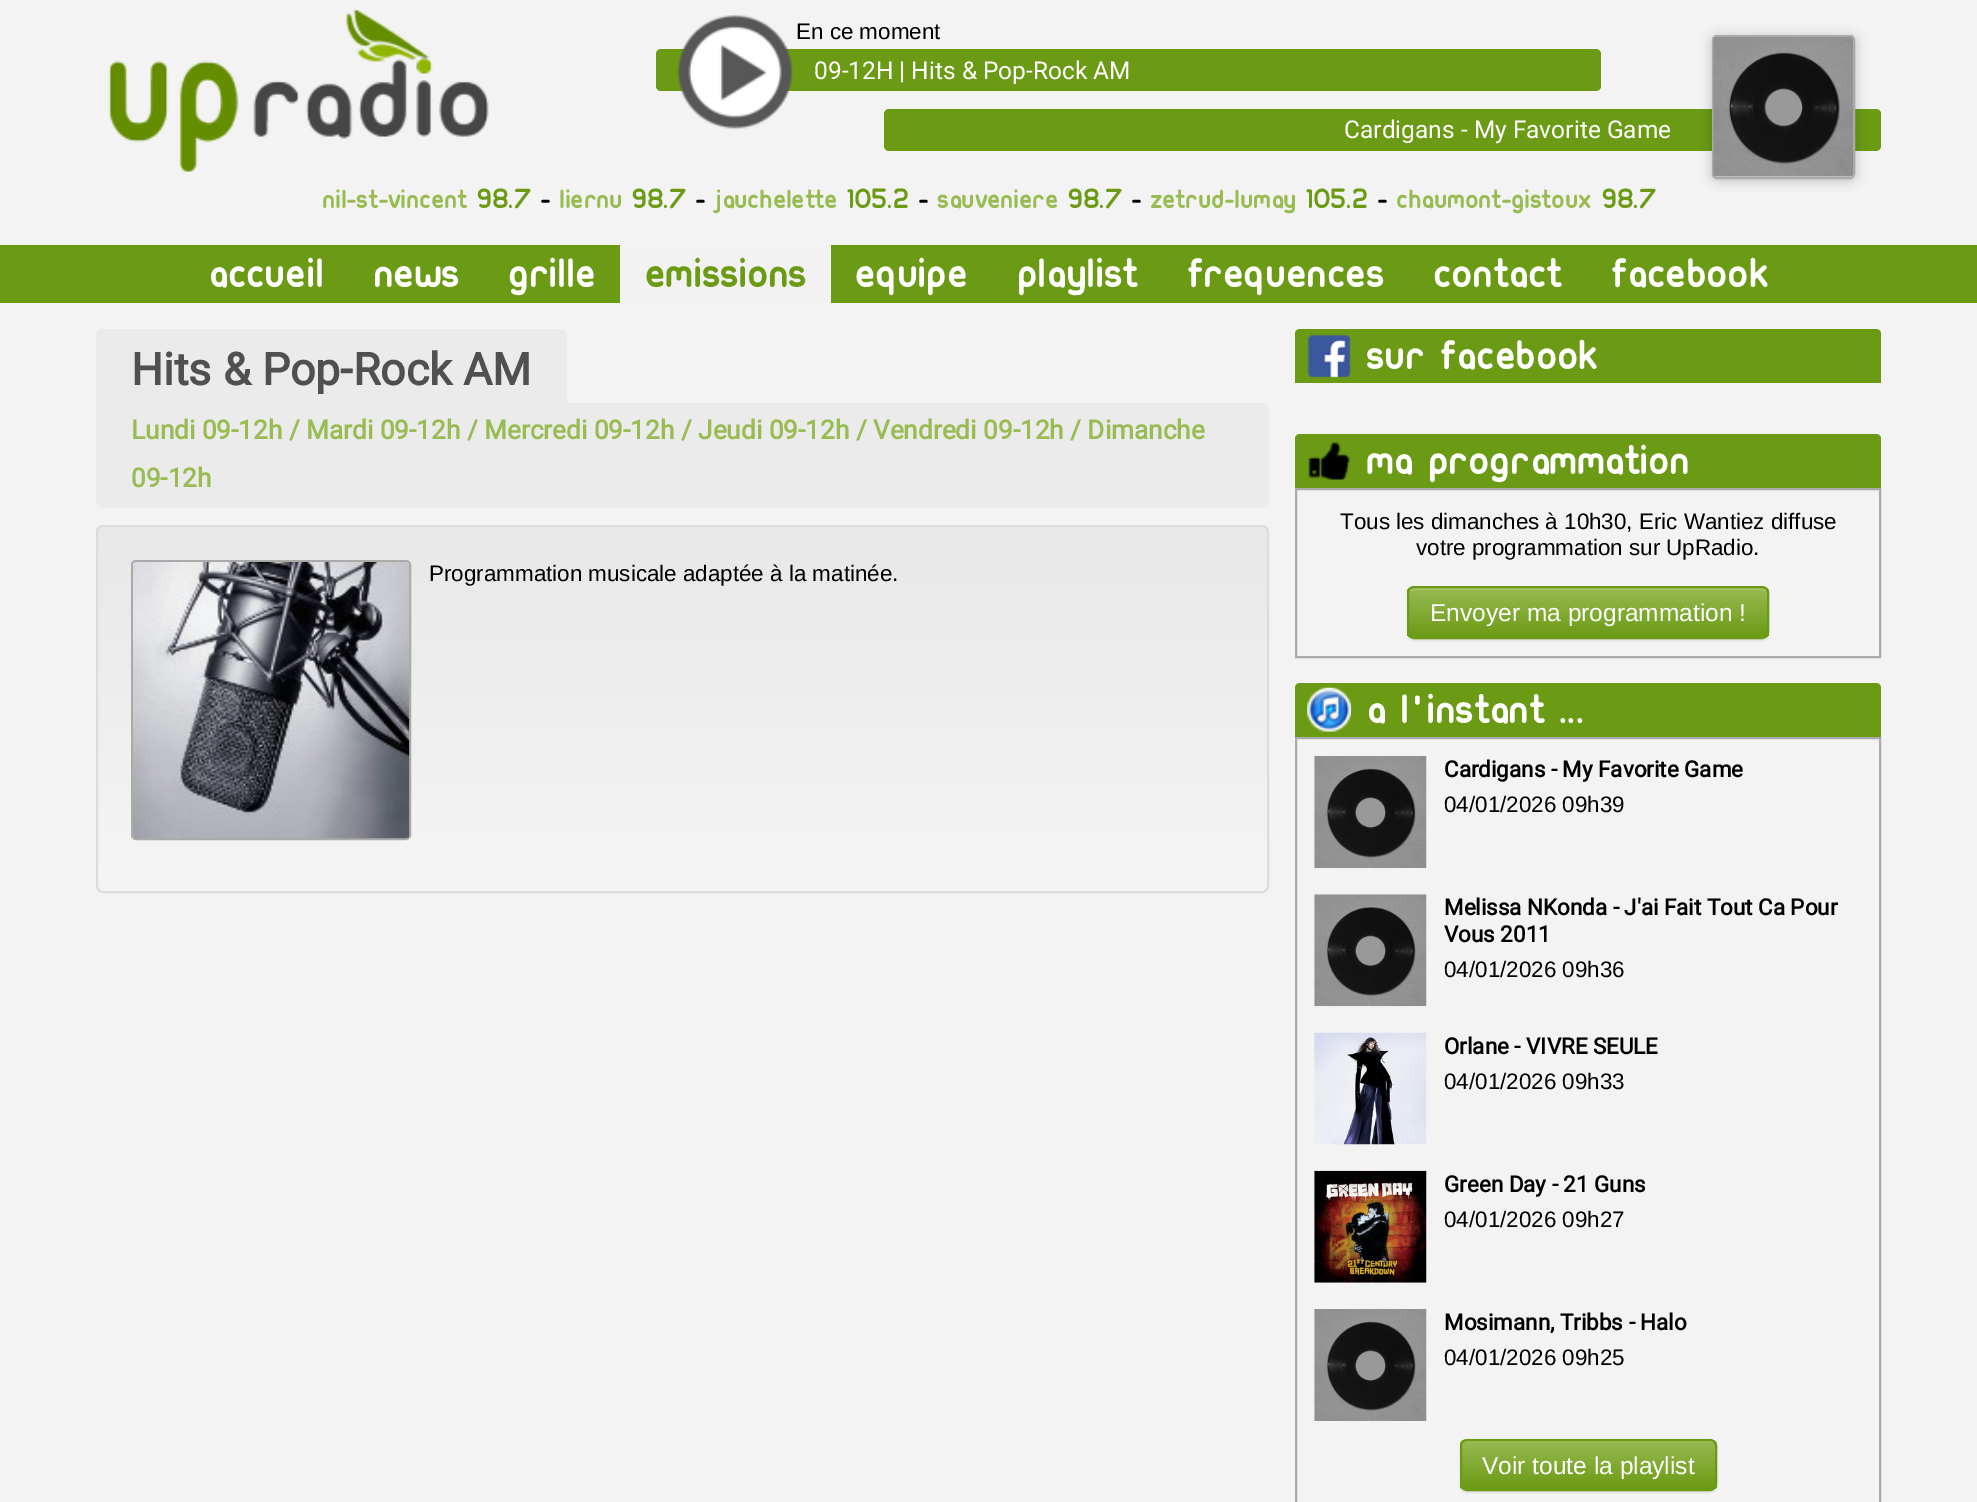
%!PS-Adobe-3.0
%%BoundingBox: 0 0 1977 1502
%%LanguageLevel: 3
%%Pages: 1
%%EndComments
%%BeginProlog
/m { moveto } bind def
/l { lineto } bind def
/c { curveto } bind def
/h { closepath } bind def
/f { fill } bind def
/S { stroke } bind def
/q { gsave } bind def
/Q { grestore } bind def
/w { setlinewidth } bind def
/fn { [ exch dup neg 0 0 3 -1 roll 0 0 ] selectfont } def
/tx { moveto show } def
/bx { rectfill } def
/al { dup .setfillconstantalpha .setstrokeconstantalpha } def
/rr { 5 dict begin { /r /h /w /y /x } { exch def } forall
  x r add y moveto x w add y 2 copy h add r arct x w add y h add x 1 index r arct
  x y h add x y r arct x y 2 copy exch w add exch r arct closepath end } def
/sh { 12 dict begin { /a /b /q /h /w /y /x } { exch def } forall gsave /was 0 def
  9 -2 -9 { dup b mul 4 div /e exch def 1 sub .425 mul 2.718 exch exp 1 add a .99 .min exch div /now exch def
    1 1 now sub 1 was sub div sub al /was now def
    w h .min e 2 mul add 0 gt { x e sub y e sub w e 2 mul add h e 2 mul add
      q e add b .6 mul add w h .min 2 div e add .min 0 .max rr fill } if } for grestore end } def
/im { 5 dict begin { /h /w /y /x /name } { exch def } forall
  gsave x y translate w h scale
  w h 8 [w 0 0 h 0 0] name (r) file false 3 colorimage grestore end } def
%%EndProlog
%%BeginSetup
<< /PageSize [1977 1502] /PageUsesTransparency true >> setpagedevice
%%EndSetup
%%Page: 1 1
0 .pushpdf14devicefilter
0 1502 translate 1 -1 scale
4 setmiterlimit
0.953 setgray
0 0 1977 1502 bx
(image0.raw) 108 8 381 164 im
0.42 0.604 0.078 setrgbcolor
656 49 945 42 5 rr f
(image1.raw) 677 15 116 114 im
/LiberationSans-Regular 22.4 fn
0 setgray
(En ce moment) 796 39 tx
0.42 0.604 0.078 setrgbcolor
884 109 997 42 5 rr f
0 setgray
1712 37 143 143 5 6 0.23 sh
0.667 setgray
2 w
1713 36 141 142 4 rr S
(image2.raw) 1713 37 140 140 im
/Roboto-Regular 24.5 fn
1 setgray
(09-12H | Hits & Pop-Rock AM) 814 79 tx
(Cardigans - My Favorite Game) 1344 138 tx
/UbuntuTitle-Regular 28 fn
0.596 0.733 0.322 setrgbcolor
(Nil-St-Vincent) 322 208 tx
0.42 0.604 0.078 setrgbcolor
(98.7) 477 208 tx
0 setgray
(-) 540 208 tx
0.596 0.733 0.322 setrgbcolor
(Liernu) 559 208 tx
0.42 0.604 0.078 setrgbcolor
(98.7) 632 208 tx
0 setgray
(-) 695 208 tx
0.596 0.733 0.322 setrgbcolor
(Jauchelette) 714 208 tx
0.42 0.604 0.078 setrgbcolor
(105.2) 847 208 tx
0 setgray
(-) 918 208 tx
0.596 0.733 0.322 setrgbcolor
(Sauveniere) 937 208 tx
0.42 0.604 0.078 setrgbcolor
(98.7) 1068 208 tx
0 setgray
(-) 1131 208 tx
0.596 0.733 0.322 setrgbcolor
(Zetrud-Lumay) 1150 208 tx
0.42 0.604 0.078 setrgbcolor
(105.2) 1306 208 tx
0 setgray
(-) 1377 208 tx
0.596 0.733 0.322 setrgbcolor
(Chaumont-Gistoux) 1396 208 tx
0.42 0.604 0.078 setrgbcolor
(98.7) 1602 208 tx
0 245 1977 58 bx
/UbuntuTitle-Regular 43.75 fn
1 setgray
(Accueil) 208 287 tx
(News) 373 287 tx
(Grille) 508 287 tx
0.949 setgray
620 245 211 58 bx
0.42 0.604 0.078 setrgbcolor
(Emissions) 645 287 tx
1 setgray
(Equipe) 855 287 tx
(Playlist) 1017 287 tx
(Frequences) 1186 287 tx
(Contact) 1433 287 tx
(Facebook) 1610 287 tx
0.922 setgray
96 329 471 81 7 rr f
/Roboto-Bold 44.75 fn
0.314 setgray
(Hits & Pop-Rock AM) 131 385 tx
0.922 setgray
96 403 1173 105 7 rr f
/Roboto-Bold 26.2 fn
0.596 0.733 0.322 setrgbcolor
(Lundi 09-12h / Mardi 09-12h / Mercredi 09-12h / Jeudi 09-12h / Vendredi 09-12h / Dimanche) 131 439 tx
(09-12h) 131 487 tx
q
96 525 1173 368 7 rr clip newpath
q 96 527 m 1269 527 l 1269 891 l 96 891 l h clip newpath
<< /ShadingType 2 /ColorSpace /DeviceRGB /Coords [683 527 683 891] /Extend [true true] /Function << /FunctionType 2 /Domain [0 1] /C0 [0.91 0.91 0.91] /C1 [0.961 0.961 0.961] /N 1 >> >> shfill Q
Q
0.863 setgray
97 526 1171 366 6 rr S
0.667 setgray
132 561 278 278 4 rr S
(image3.raw) 133 562 277 277 im
/LiberationSans-Regular 22.4 fn
0 setgray
(Programmation musicale adaptée à la matinée.) 429 581 tx
0.42 0.604 0.078 setrgbcolor
1300 329 m 1876 329 l 1879 329 1881 331 1881 334 c 1881 383 l 1295 383 l 1295 334 l 1295 331 1297 329 1300 329 c h f
(image4.raw) 1307 334 44 44 im
/UbuntuTitle-Regular 43.75 fn
1 setgray
(Sur Facebook) 1366 369 tx
0.42 0.604 0.078 setrgbcolor
1300 434 m 1876 434 l 1879 434 1881 436 1881 439 c 1881 488 l 1295 488 l 1295 439 l 1295 436 1297 434 1300 434 c h f
(image5.raw) 1308 442 42 38 im
1 setgray
(Ma Programmation) 1366 474 tx
0.667 setgray
1296 489 584 168 rectstroke
/LiberationSans-Regular 22.4 fn
0 setgray
(Tous les dimanches à 10h30, Eric Wantiez diffuse) 1340 529 tx
(votre programmation sur UpRadio.) 1416 555 tx
1407 588 362 53 7 1 0.07 sh
q
1407 586 362 53 7 rr clip newpath
q 1407 588 m 1769 588 l 1769 637 l 1407 637 l h clip newpath
<< /ShadingType 2 /ColorSpace /DeviceRGB /Coords [1588 588 1588 637] /Extend [true true] /Function << /FunctionType 2 /Domain [0 1] /C0 [0.596 0.733 0.322] /C1 [0.42 0.604 0.078] /N 1 >> >> shfill Q
Q
0.15 al
1 setgray
1414 590 m 1762 590 l 1765 590 1768 592 1768 595 c 1768 592 1767 588 1763 588 c 1414 588 l 1410 588 1409 592 1409 595 c 1409 592 1411 590 1414 590 c h f
1 al
0.42 0.604 0.078 setrgbcolor
1408 587 360 51 6 rr S
/LiberationSans-Regular 24.5 fn
1 setgray
(Envoyer ma programmation !) 1430 621 tx
0.42 0.604 0.078 setrgbcolor
1300 683 m 1876 683 l 1879 683 1881 685 1881 688 c 1881 737 l 1295 737 l 1295 688 l 1295 685 1297 683 1300 683 c h f
(image6.raw) 1307 687 44 45 im
/UbuntuTitle-Regular 43.75 fn
1 setgray
(A l'instant ...) 1366 723 tx
0.667 setgray
1296 738 584 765 rectstroke
(image7.raw) 1314 756 113 112 im
/Roboto-Bold 22.4 fn
0 setgray
(Cardigans - My Favorite Game) 1444 777 tx
/LiberationSans-Regular 22.4 fn
(04/01/2026 09h39) 1444 812 tx
(image8.raw) 1314 894 113 113 im
/Roboto-Bold 22.4 fn
(Melissa NKonda - J'ai Fait Tout Ca Pour) 1444 915 tx
(Vous 2011) 1444 942 tx
/LiberationSans-Regular 22.4 fn
(04/01/2026 09h36) 1444 977 tx
(image9.raw) 1314 1032 113 113 im
/Roboto-Bold 22.4 fn
(Orlane - VIVRE SEULE) 1444 1054 tx
/LiberationSans-Regular 22.4 fn
(04/01/2026 09h33) 1444 1089 tx
(image10.raw) 1314 1170 113 113 im
/Roboto-Bold 22.4 fn
(Green Day - 21 Guns) 1444 1192 tx
/LiberationSans-Regular 22.4 fn
(04/01/2026 09h27) 1444 1227 tx
(image7.raw) 1314 1309 113 112 im
/Roboto-Bold 22.4 fn
(Mosimann, Tribbs - Halo) 1444 1330 tx
/LiberationSans-Regular 22.4 fn
(04/01/2026 09h25) 1444 1365 tx
1460 1440 257 53 7 1 0.07 sh
q
1460 1439 257 52 7 rr clip newpath
q 1460 1440 m 1717 1440 l 1717 1489 l 1460 1489 l h clip newpath
<< /ShadingType 2 /ColorSpace /DeviceRGB /Coords [1588 1440 1588 1489] /Extend [true true] /Function << /FunctionType 2 /Domain [0 1] /C0 [0.596 0.733 0.322] /C1 [0.42 0.604 0.078] /N 1 >> >> shfill Q
Q
0.15 al
1 setgray
1466 1442 m 1710 1442 l 1713 1442 1715 1444 1715 1447 c 1715 1444 1714 1440 1710 1440 c 1466 1440 l 1462 1440 1461 1444 1461 1447 c 1461 1444 1464 1442 1466 1442 c h f
1 al
0.42 0.604 0.078 setrgbcolor
1461 1440 255 50 6 rr S
/LiberationSans-Regular 24.5 fn
1 setgray
(Voir toute la playlist) 1482 1474 tx
.poppdf14devicefilter showpage
%%EOF
